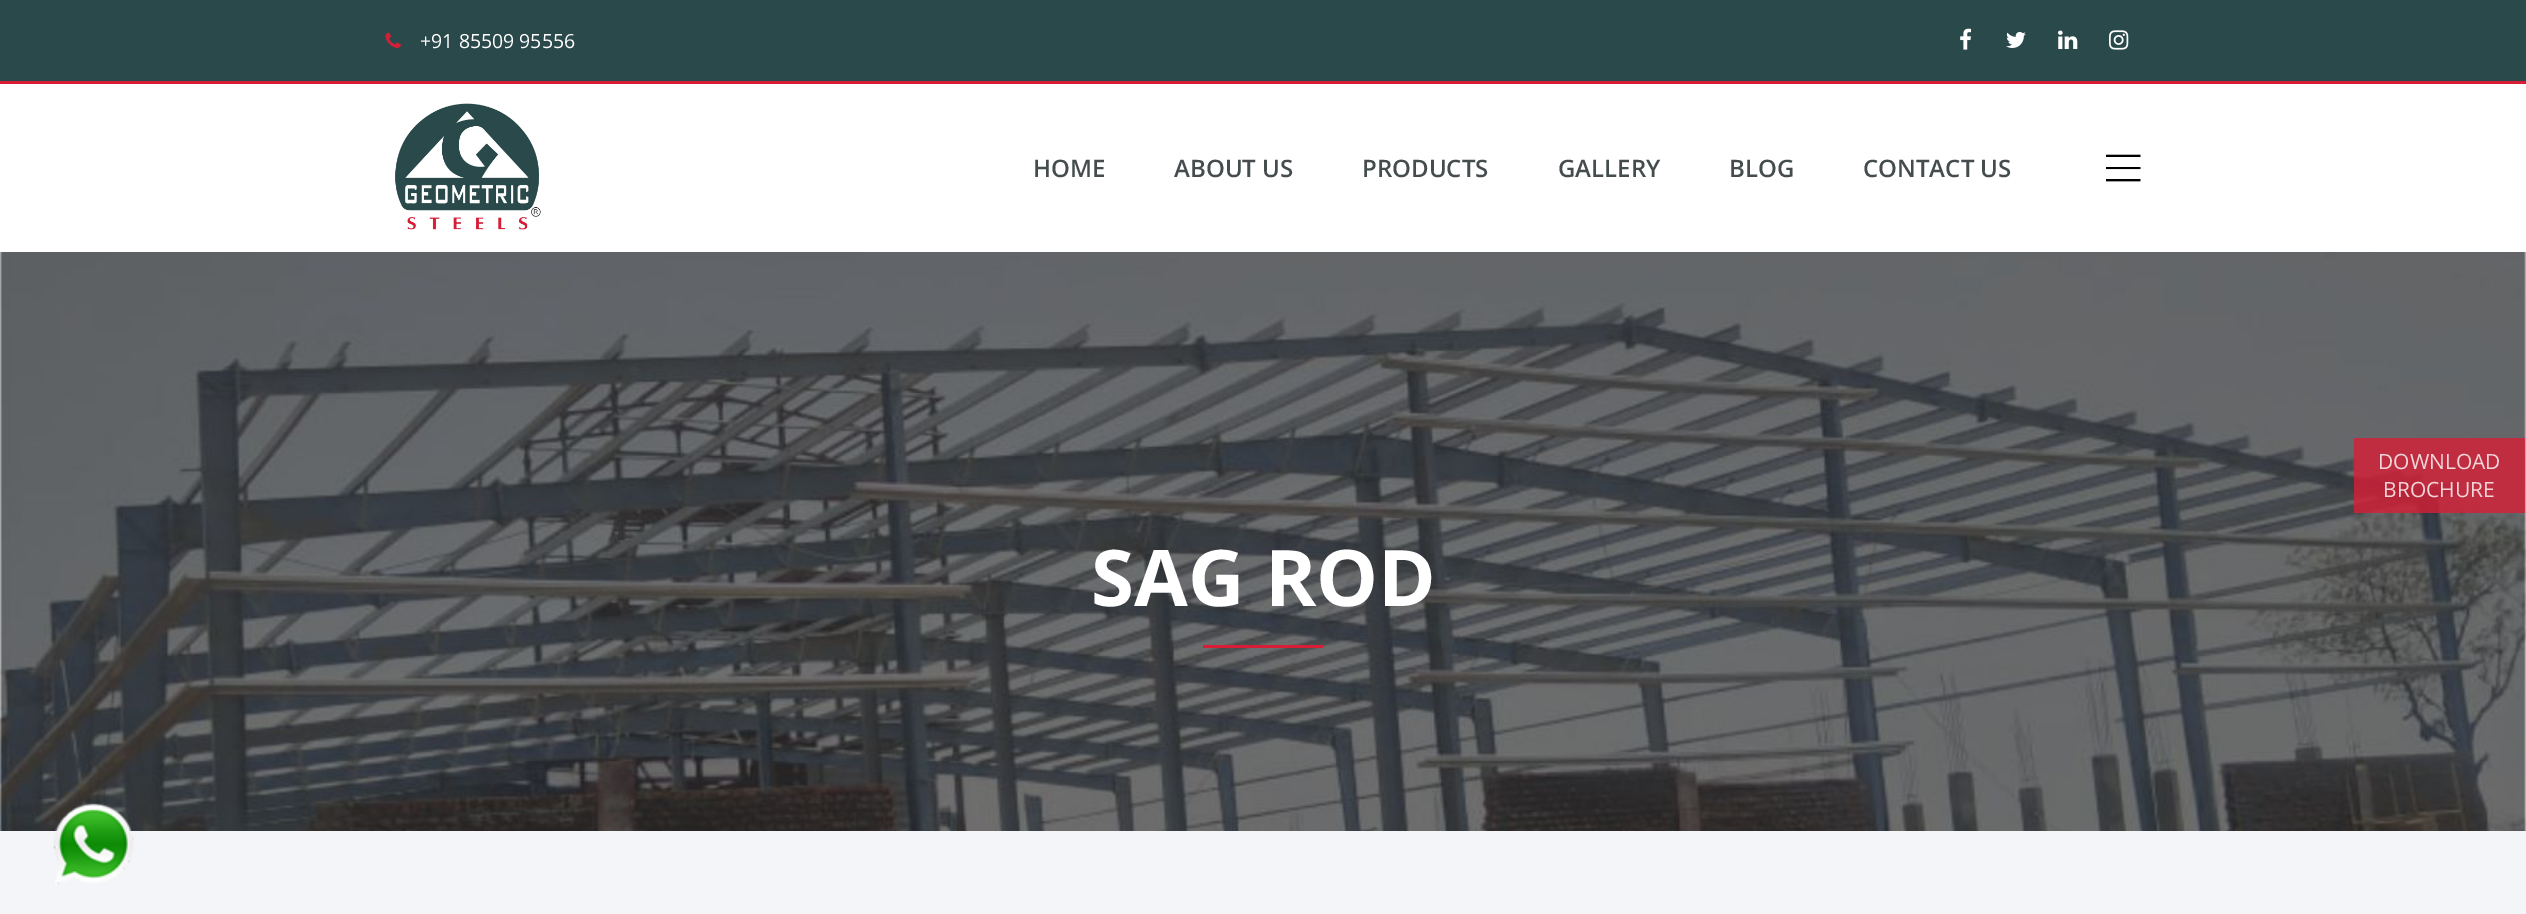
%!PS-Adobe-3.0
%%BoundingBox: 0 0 2526 914
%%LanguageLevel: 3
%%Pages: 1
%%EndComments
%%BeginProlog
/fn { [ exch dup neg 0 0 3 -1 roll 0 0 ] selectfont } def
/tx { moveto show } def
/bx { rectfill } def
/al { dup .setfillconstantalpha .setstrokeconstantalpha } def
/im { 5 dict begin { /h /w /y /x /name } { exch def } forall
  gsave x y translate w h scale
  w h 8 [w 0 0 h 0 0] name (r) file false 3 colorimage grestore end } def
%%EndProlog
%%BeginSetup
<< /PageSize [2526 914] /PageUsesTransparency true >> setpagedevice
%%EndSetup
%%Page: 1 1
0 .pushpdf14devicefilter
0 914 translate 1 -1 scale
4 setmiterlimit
1 setgray
0 0 2526 914 bx
0.165 0.286 0.294 setrgbcolor
0 0 2526 81 bx
0.843 0.118 0.212 setrgbcolor
0 81 2526 3 bx
(image0.raw) 385 32 16 16 im
/OpenSans-Regular 19.5 fn
1 setgray
(+91 85509 95556) 420 48 tx
(image1.raw) 1960 28 12 22 im
(image2.raw) 2006 31 20 17 im
(image3.raw) 2058 30 20 19 im
(image4.raw) 2109 30 20 20 im
(image5.raw) 395 103 146 127 im
/OpenSans-SemiBold 24 fn
0.271 0.298 0.306 setrgbcolor
(HOME) 1033 177 tx
(ABOUT US) 1174 177 tx
(PRODUCTS) 1362 177 tx
(GALLERY) 1558 177 tx
(BLOG) 1729 177 tx
(CONTACT US) 1863 177 tx
(image6.raw) 2106 154 35 28 im
(image7.raw) 0 252 2526 579 im
0.8 al
0.843 0.118 0.212 setrgbcolor
2354 438 171 75 bx
/OpenSans-Regular 21 fn
1 al
0.949 0.835 0.851 setrgbcolor
(DOWNLOAD) 2378 469 tx
(BROCHURE) 2383 497 tx
/OpenSans-Bold 78 fn
1 setgray
(SAG ROD) 1091 606 tx
0.843 0.118 0.212 setrgbcolor
1203 645 120 3 bx
0.957 0.961 0.973 setrgbcolor
0 831 2526 83 bx
(image8.raw) 53 803 81 82 im
.poppdf14devicefilter showpage
%%EOF
